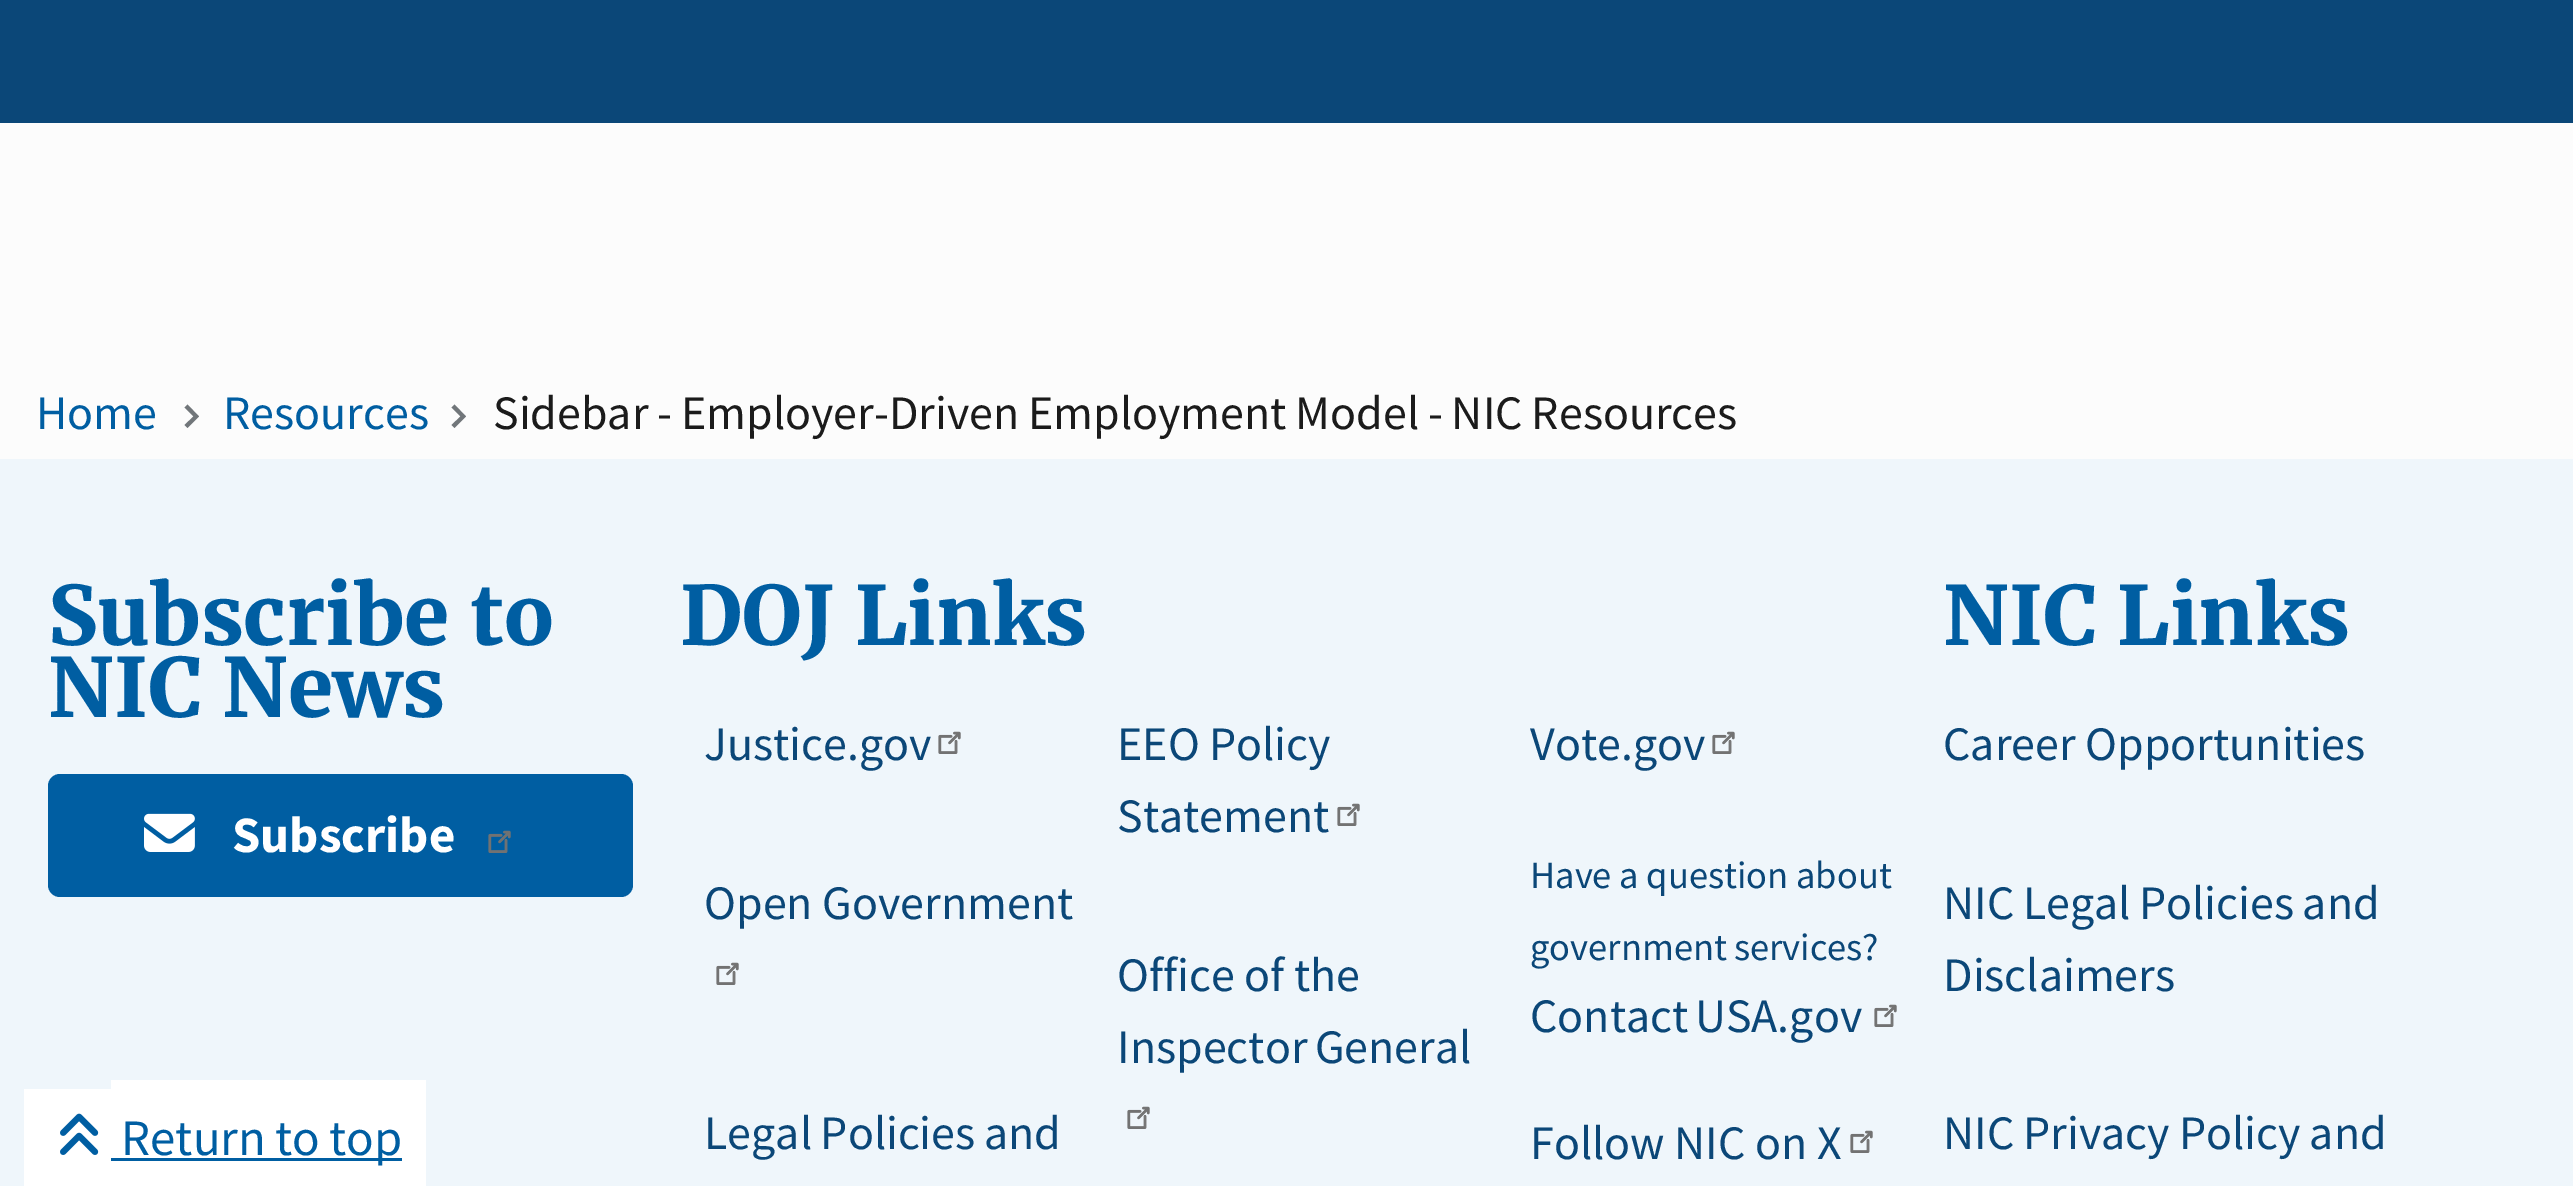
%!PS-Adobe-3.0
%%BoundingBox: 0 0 2573 1186
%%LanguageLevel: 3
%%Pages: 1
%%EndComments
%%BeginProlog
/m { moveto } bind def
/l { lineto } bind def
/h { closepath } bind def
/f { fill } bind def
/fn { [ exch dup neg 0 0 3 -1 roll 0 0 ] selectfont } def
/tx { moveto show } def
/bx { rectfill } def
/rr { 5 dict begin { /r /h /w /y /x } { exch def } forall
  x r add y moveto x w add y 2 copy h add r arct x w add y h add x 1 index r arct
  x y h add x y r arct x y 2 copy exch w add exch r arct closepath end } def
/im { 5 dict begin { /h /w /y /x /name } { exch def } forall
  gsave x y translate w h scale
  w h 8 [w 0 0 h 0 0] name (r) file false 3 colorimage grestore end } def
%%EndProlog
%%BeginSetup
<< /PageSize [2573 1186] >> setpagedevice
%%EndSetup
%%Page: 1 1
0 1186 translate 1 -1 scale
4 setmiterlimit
0.988 setgray
0 0 2573 1186 bx
0.043 0.278 0.471 setrgbcolor
0 0 2573 123 bx
/SourceSansPro-Regular 48 fn
0 0.369 0.635 setrgbcolor
(Home) 36 429 tx
0.443 0.463 0.478 setrgbcolor
187.5 404.5 m 184.5 407.5 l 193.5 416.5 l 184.5 425 l 187.5 428 l 199 416.5 l h f
0 0.369 0.635 setrgbcolor
(Resources) 223 429 tx
0.443 0.463 0.478 setrgbcolor
454.5 404.5 m 451.5 407.5 l 460.5 416.5 l 451.5 425 l 454.5 428 l 466 416.5 l h f
0.106 setgray
493 429 m -0.75 0 32 (Sidebar - Employer-Driven Employment Model - NIC Resources) widthshow
0.937 0.965 0.984 setrgbcolor
0 459 2573 727 bx
/Merriweather-Bold 81.5 fn
0 0.369 0.635 setrgbcolor
(Subscribe to) 48 645 tx
(NIC News) 48 717 tx
48 774 585 123 12 rr f
(image0.raw) 144 813 51 39 im
/SourceSansPro-Bold 51 fn
1 setgray
(Subscribe) 232 852 tx
(image1.raw) 488 830 23 23 im
/Merriweather-Bold 81.5 fn
0 0.369 0.635 setrgbcolor
(DOJ Links) 680 645 tx
/SourceSansPro-Regular 48 fn
0.043 0.278 0.471 setrgbcolor
(Justice.gov) 704 760 tx
(image2.raw) 938 731 23 23 im
(Open Government) 704 919 tx
(image2.raw) 716 962 23 23 im
704 1149 m -1 0 32 (Legal Policies and) widthshow
(EEO Policy) 1117 760 tx
(Statement) 1117 832 tx
(image2.raw) 1337 803 23 23 im
(Office of the) 1117 991 tx
1117 1063 m -2 0 32 (Inspector General) widthshow
(image2.raw) 1127 1106 23 23 im
(Vote.gov) 1530 760 tx
(image2.raw) 1712 731 23 23 im
/SourceSansPro-Regular 38.5 fn
(Have a question about) 1530 888 tx
1530 960 m -1 0 32 (government services?) widthshow
/SourceSansPro-Regular 48 fn
1530 1032 m -3 0 32 (Contact USA.gov) widthshow
(image2.raw) 1874 1004 23 23 im
(Follow NIC on X) 1530 1159 tx
(image2.raw) 1850 1130 23 23 im
/Merriweather-Bold 81.5 fn
0 0.369 0.635 setrgbcolor
(NIC Links) 1943 645 tx
/SourceSansPro-Regular 48 fn
0.043 0.278 0.471 setrgbcolor
(Career Opportunities) 1943 760 tx
1943 919 m -1 0 32 (NIC Legal Policies and) widthshow
(Disclaimers) 1943 991 tx
1943 1149 m -0.5 0 32 (NIC Privacy Policy and) widthshow
1 setgray
24 1089 87 97 bx
111 1080 315 106 bx
(image3.raw) 60 1113 39 42 im
0 0.369 0.635 setrgbcolor
111 1158 291 3 bx
/SourceSansPro-Regular 51 fn
121 1155 m -1 0 32 (Return to top) widthshow
showpage
%%EOF
